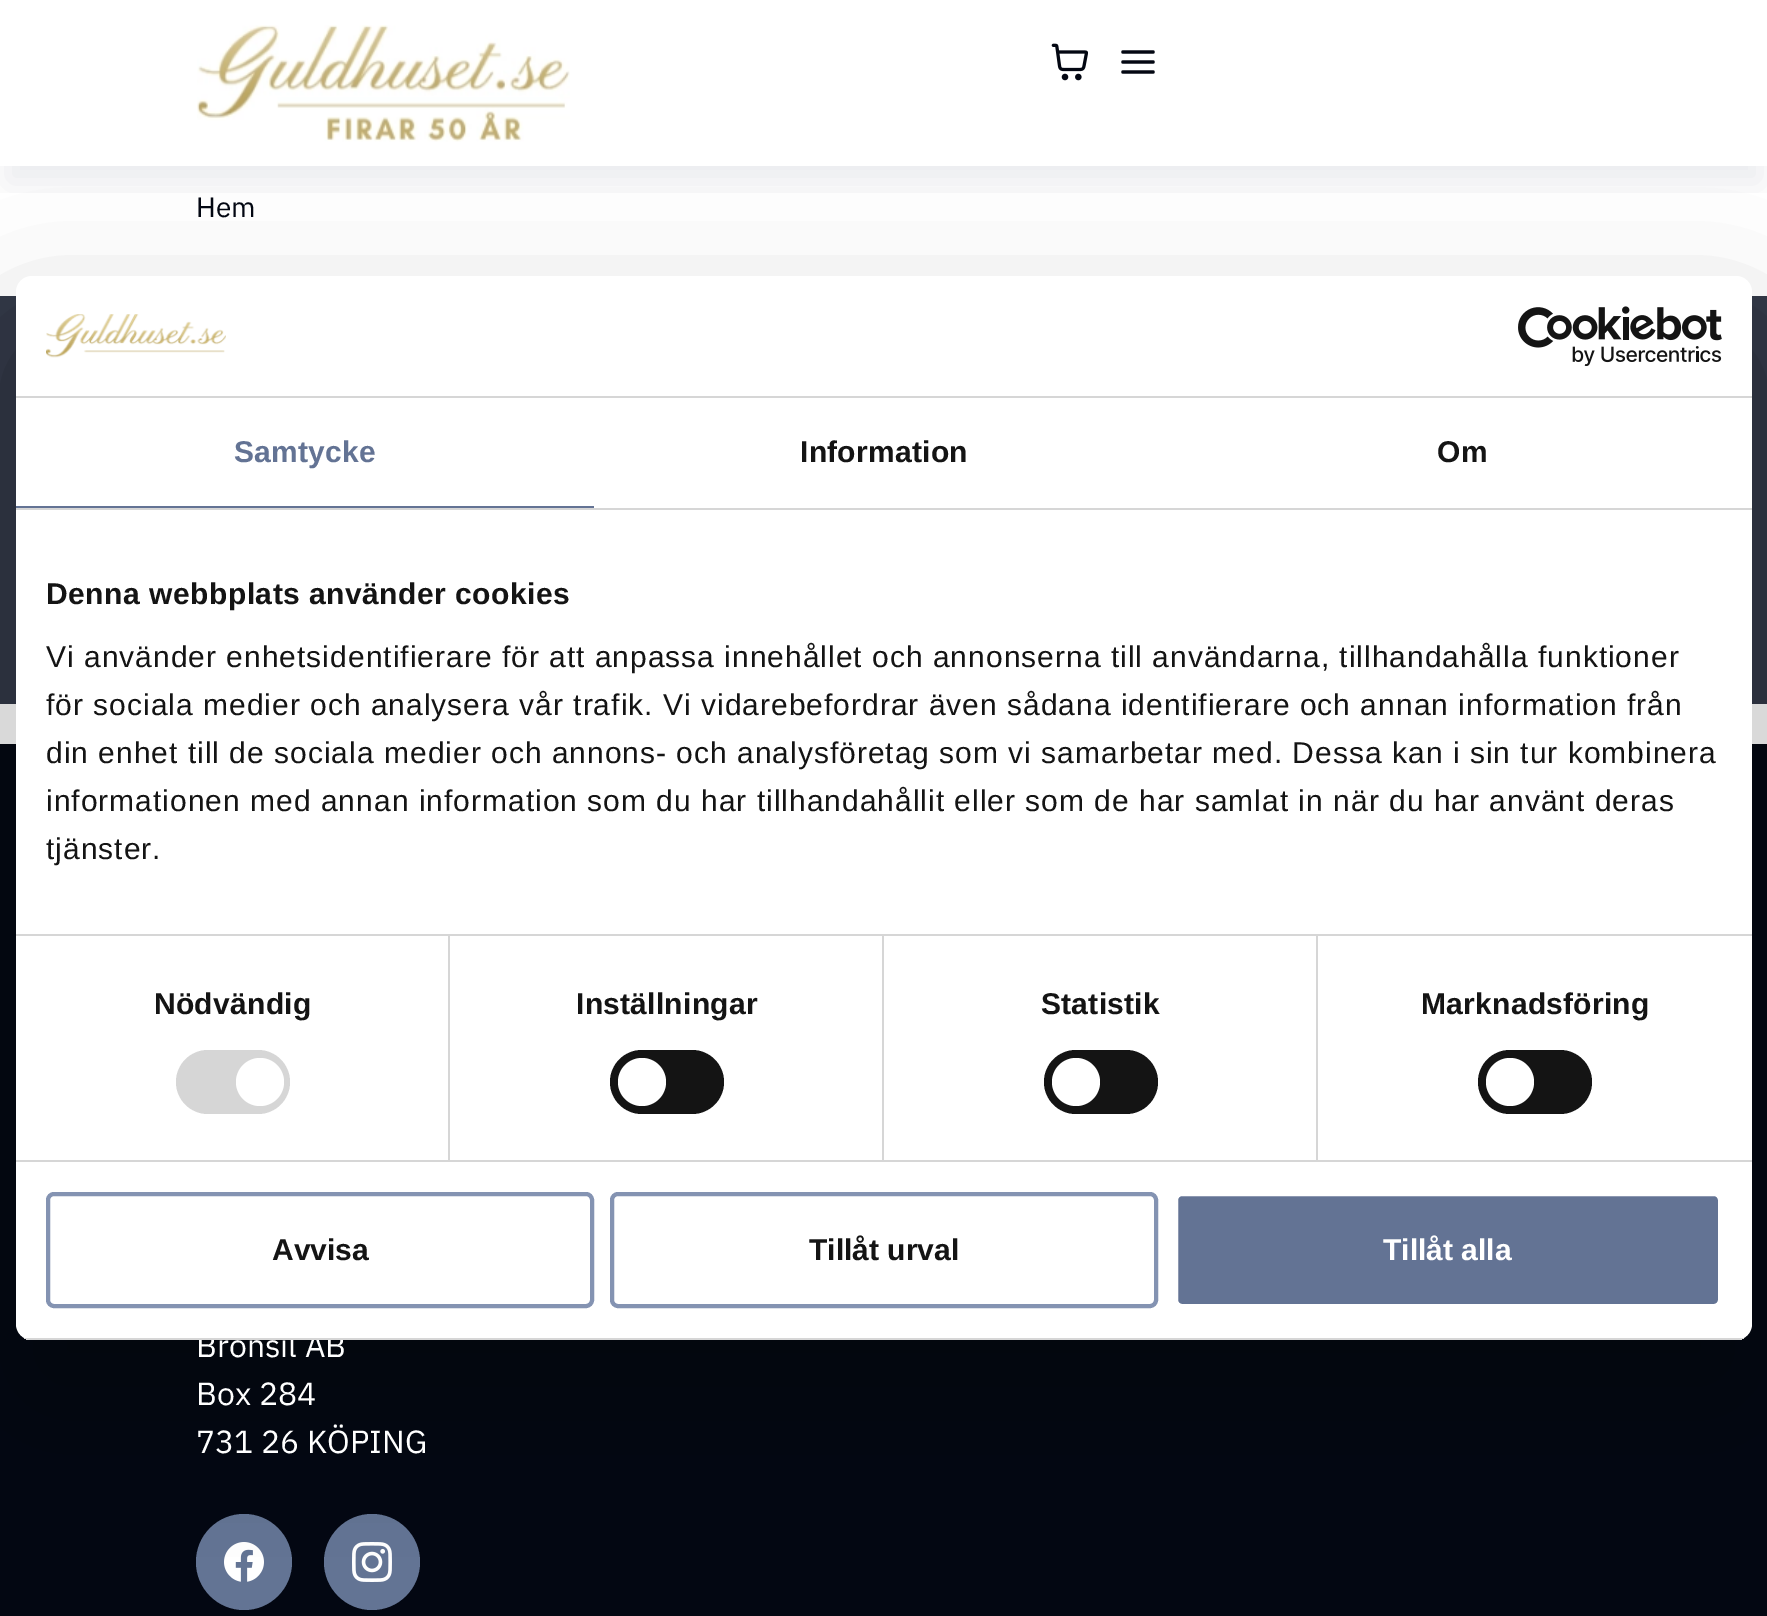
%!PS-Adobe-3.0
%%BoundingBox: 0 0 1767 1616
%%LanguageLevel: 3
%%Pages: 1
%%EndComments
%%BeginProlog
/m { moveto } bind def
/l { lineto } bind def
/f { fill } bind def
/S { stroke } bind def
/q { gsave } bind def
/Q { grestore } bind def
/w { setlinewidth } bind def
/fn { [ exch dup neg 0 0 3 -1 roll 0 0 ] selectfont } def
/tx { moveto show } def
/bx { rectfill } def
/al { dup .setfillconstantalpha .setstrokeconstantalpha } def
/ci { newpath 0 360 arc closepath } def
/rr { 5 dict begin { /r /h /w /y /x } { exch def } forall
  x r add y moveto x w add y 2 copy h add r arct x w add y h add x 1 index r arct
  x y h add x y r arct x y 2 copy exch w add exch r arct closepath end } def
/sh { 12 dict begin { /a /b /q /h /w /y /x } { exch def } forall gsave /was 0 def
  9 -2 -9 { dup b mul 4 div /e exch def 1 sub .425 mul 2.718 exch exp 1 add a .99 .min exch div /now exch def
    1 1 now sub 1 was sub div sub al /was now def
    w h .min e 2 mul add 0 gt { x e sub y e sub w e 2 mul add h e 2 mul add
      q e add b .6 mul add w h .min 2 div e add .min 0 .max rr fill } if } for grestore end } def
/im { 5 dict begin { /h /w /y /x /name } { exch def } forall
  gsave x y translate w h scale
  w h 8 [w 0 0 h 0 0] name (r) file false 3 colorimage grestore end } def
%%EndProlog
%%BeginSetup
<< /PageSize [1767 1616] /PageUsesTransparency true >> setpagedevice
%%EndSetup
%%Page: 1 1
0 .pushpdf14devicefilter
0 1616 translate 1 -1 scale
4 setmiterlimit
1 setgray
0 0 1767 1616 bx
q
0 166 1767 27 rectclip
0.063 0.094 0.157 setrgbcolor
8 32 1752 150 0 16 0.08 sh
Q
(image0.raw) 197 25 373 117 im
(image1.raw) 1051 43 37 38 im
0.012 0.027 0.071 setrgbcolor
3.3 w
1 setlinecap
1 setlinejoin
1123 62 m 1153 62 l 1123 52 m 1153 52 l 1123 72 m 1153 72 l S
/IBMPlexSans-Regular 28 fn
(Hem) 196 217 tx
0.196 0.22 0.282 setrgbcolor
0 296 1767 408 bx
0.012 0.027 0.071 setrgbcolor
0 744 1767 872 bx
0.388 0.455 0.58 setrgbcolor
244 1562 48 ci f
(image4.raw) 224 1542 40 40 im
372 1562 48 ci f
(image5.raw) 352 1542 40 40 im
0 setgray
16 340 1736 1064 16 68 0.3 sh
1 setgray
16 276 1736 1064 16 rr f
0.839 setgray
16 396 1736 2 bx
(image2.raw) 46 314 180 44 im
(image3.raw) 1518 306 204 60 im
16 508 1736 2 bx
0.388 0.451 0.58 setrgbcolor
16 506 578 2 bx
/LiberationSans-Bold 30 fn
234 462 m 0.25 0 (Samtycke) ashow
0.078 setgray
800 462 m 0.25 0 (Information) ashow
1437 462 m 0.25 0 (Om) ashow
0.839 setgray
16 934 1736 2 bx
0.078 setgray
46 604 m 0.5 0 (Denna webbplats använder cookies) ashow
/LiberationSans-Regular 30 fn
46 667 m 1 0 (Vi använder enhetsidentifierare för att anpassa innehållet och annonserna till användarna, tillhandahålla funktioner) ashow
46 715 m 1 0 (för sociala medier och analysera vår trafik. Vi vidarebefordrar även sådana identifierare och annan information från) ashow
46 763 m 1 0 (din enhet till de sociala medier och annons- och analysföretag som vi samarbetar med. Dessa kan i sin tur kombinera) ashow
46 811 m 1 0 (informationen med annan information som du har tillhandahållit eller som de har samlat in när du har använt deras) ashow
46 859 m 1 0 (tjänster.) ashow
0.839 setgray
16 1160 1736 2 bx
448 936 2 224 bx
/LiberationSans-Bold 30 fn
0.078 setgray
154 1014 m 0.25 0 (Nödvändig) ashow
0.839 setgray
176 1050 114 64 32 rr f
1 setgray
260 1082 24 ci f
0.839 setgray
882 936 2 224 bx
0.078 setgray
576 1014 m 0.25 0 (Inställningar) ashow
610 1050 114 64 32 rr f
1 setgray
642 1082 24 ci f
0.839 setgray
1316 936 2 224 bx
0.078 setgray
1041 1014 m 0.25 0 (Statistik) ashow
1044 1050 114 64 32 rr f
1 setgray
1076 1082 24 ci f
0.078 setgray
1421 1014 m 0.25 0 (Marknadsföring) ashow
1478 1050 114 64 32 rr f
1 setgray
1510 1082 24 ci f
/IBMPlexSans-Regular 32 fn
(Bronsil AB) 196 1357 tx
q
16 276 1736 1064 16 rr clip newpath
0.839 setgray
16 1338 1736 2 bx
Q
0.518 0.576 0.698 setrgbcolor
4 w
0 setlinecap
0 setlinejoin
48 1194 544 112 6 rr S
/LiberationSans-Bold 30 fn
0.078 setgray
(Avvisa) 272 1260 tx
0.518 0.576 0.698 setrgbcolor
612 1194 544 112 6 rr S
0.078 setgray
(Tillåt urval) 809 1260 tx
0.388 0.451 0.58 setrgbcolor
1176 1194 544 112 6 rr q f Q
1 setgray
S
(Tillåt alla) 1383 1260 tx
/IBMPlexSans-Regular 32 fn
(Box 284) 196 1405 tx
(731 26 KÖPING) 196 1453 tx
.poppdf14devicefilter showpage
%%EOF
